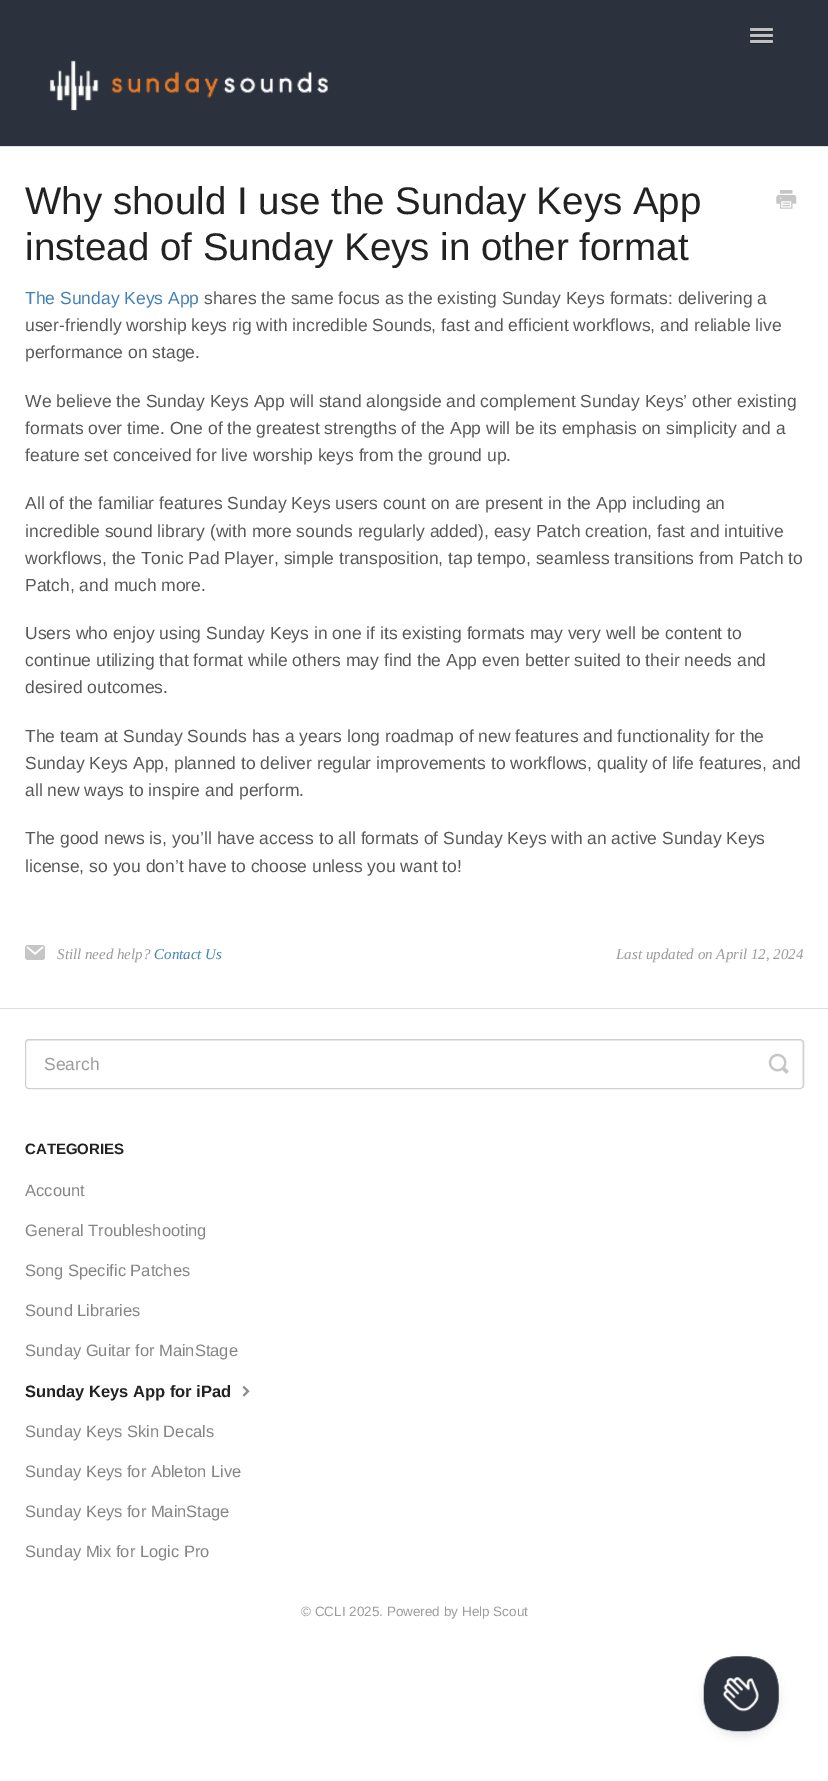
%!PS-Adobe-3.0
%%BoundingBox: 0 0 828 1781
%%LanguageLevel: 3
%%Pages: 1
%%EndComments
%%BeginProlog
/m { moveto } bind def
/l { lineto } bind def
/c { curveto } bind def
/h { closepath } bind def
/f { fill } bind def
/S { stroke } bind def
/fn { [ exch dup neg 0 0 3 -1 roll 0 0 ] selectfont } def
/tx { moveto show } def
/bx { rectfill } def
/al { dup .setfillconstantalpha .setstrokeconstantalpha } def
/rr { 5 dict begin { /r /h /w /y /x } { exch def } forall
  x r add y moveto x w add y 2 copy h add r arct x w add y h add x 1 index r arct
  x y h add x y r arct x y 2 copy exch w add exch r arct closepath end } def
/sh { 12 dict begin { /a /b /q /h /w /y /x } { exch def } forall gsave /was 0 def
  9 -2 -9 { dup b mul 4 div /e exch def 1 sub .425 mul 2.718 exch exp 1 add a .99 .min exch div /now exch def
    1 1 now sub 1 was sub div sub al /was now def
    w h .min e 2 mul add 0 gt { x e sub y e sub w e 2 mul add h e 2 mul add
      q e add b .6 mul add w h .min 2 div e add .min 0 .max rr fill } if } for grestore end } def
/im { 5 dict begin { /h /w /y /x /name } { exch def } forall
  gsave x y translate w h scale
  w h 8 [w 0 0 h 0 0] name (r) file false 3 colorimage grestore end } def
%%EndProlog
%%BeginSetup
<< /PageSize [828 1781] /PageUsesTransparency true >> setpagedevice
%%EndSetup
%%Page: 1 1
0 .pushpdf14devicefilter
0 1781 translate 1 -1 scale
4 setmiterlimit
1 setgray
0 0 828 1781 bx
0.173 0.196 0.239 setrgbcolor
0 0 828 146 bx
0.129 0.149 0.18 setrgbcolor
750.5 29.5 m 750 31 l 750.5 33 754 32 755 32 c 768 32 l 769.5 32 773 33 773 30.5 c 772.5 29.5 l 771.5 30 l 769.5 30.5 751 30.5 750.5 29.5 c h f
0.753 setgray
750 28 23 3 1.5 rr f
0.129 0.149 0.18 setrgbcolor
750 35.5 m 748.5 38.5 754.5 38 755 38 c 768 38 l 769 38 772.5 39 773 37 c 773 36.5 773 35.5 772.5 35.5 c 771.5 36 l 751 36 l h f
0.753 setgray
750 34 23 3 1.5 rr f
0.129 0.149 0.18 setrgbcolor
750 42 m 749 44.5 754 44 755 44 c 768 44 l 769 44 772.5 45 773 43 c 773 42.5 773 41.5 772.5 41.5 c 772.5 42 772 42.5 771 42.5 c 751 42.5 l 751 42.5 750.5 42 750 42 c h f
0.753 setgray
750 40 23 3 1.5 rr f
(image0.raw) 49 60 280 51 im
0.871 setgray
0 146 828 1 bx
0 1008 828 1 bx
/LiberationSans-Regular 38.5 fn
0.133 setgray
(Why should I use the Sunday Keys App) 25 214 tx
(instead of Sunday Keys in other format) 25 260 tx
(image1.raw) 776 190 21 19 im
/LiberationSans-Regular 17.5 fn
0.263 0.506 0.71 setrgbcolor
(The Sunday Keys App) 25 304 tx
0.345 setgray
(shares the same focus as the existing Sunday Keys formats: delivering a) 204 304 tx
(user-friendly worship keys rig with incredible Sounds, fast and efficient workflows, and reliable live) 25 331 tx
(performance on stage.) 25 358 tx
(We believe the Sunday Keys App will stand alongside and complement Sunday Keys’ other existing) 25 407 tx
(formats over time. One of the greatest strengths of the App will be its emphasis on simplicity and a) 25 434 tx
(feature set conceived for live worship keys from the ground up.) 25 461 tx
(All of the familiar features Sunday Keys users count on are present in the App including an) 25 509 tx
(incredible sound library \(with more sounds regularly added\), easy Patch creation, fast and intuitive) 25 537 tx
(workflows, the Tonic Pad Player, simple transposition, tap tempo, seamless transitions from Patch to) 25 564 tx
(Patch, and much more.) 25 591 tx
(Users who enjoy using Sunday Keys in one if its existing formats may very well be content to) 25 639 tx
(continue utilizing that format while others may find the App even better suited to their needs and) 25 666 tx
(desired outcomes.) 25 693 tx
(The team at Sunday Sounds has a years long roadmap of new features and functionality for the) 25 742 tx
(Sunday Keys App, planned to deliver regular improvements to workflows, quality of life features, and) 25 769 tx
(all new ways to inspire and perform.) 25 796 tx
(The good news is, you’ll have access to all formats of Sunday Keys with an active Sunday Keys) 25 844 tx
(license, so you don’t have to choose unless you want to!) 25 872 tx
(image2.raw) 25 945 20 15 im
/LiberationSerif-Italic 15 fn
0.608 setgray
(Still need help?) 57 959 tx
0.263 0.506 0.71 setrgbcolor
(Contact Us) 154 959 tx
0.608 setgray
(Last updated on April 12, 2024) 616 959 tx
0.925 setgray
29 1041 m 800 1041 l 801 1041 802 1042 802 1044 c 802 1088 l 803 1086 l 803 1042 l 803 1041 802 1040 800 1040 c 28 1040 l 26 1040 26 1042 26 1044 c 26 1042 27 1041 29 1041 c h f
0.816 setgray
25.5 1039.5 778 49 3.5 rr S
/LiberationSans-Regular 17.5 fn
0.608 setgray
(Search) 44 1070 tx
(image3.raw) 768 1053 21 21 im
/LiberationSans-Bold 15 fn
0.133 setgray
(CATEGORIES) 25 1154 tx
/LiberationSans-Regular 16.5 fn
0.522 setgray
(Account) 25 1196 tx
(General Troubleshooting) 25 1236 tx
(Song Specific Patches) 25 1276 tx
(Sound Libraries) 25 1316 tx
(Sunday Guitar for MainStage) 25 1356 tx
/LiberationSans-Bold 16.5 fn
0.133 setgray
(Sunday Keys App for iPad) 25 1397 tx
(image4.raw) 242 1385 8 12 im
/LiberationSans-Regular 16.5 fn
0.522 setgray
(Sunday Keys Skin Decals) 25 1437 tx
(Sunday Keys for Ableton Live) 25 1477 tx
(Sunday Keys for MainStage) 25 1517 tx
(Sunday Mix for Logic Pro) 25 1557 tx
/LiberationSans-Regular 13.5 fn
0.608 setgray
(© CCLI 2025. Powered by Help Scout) 301 1616 tx
0 setgray
704 1661 75 75 37.5 4.5 0.1 sh
(image5.raw) 703 1656 76 76 im
.poppdf14devicefilter showpage
%%EOF
